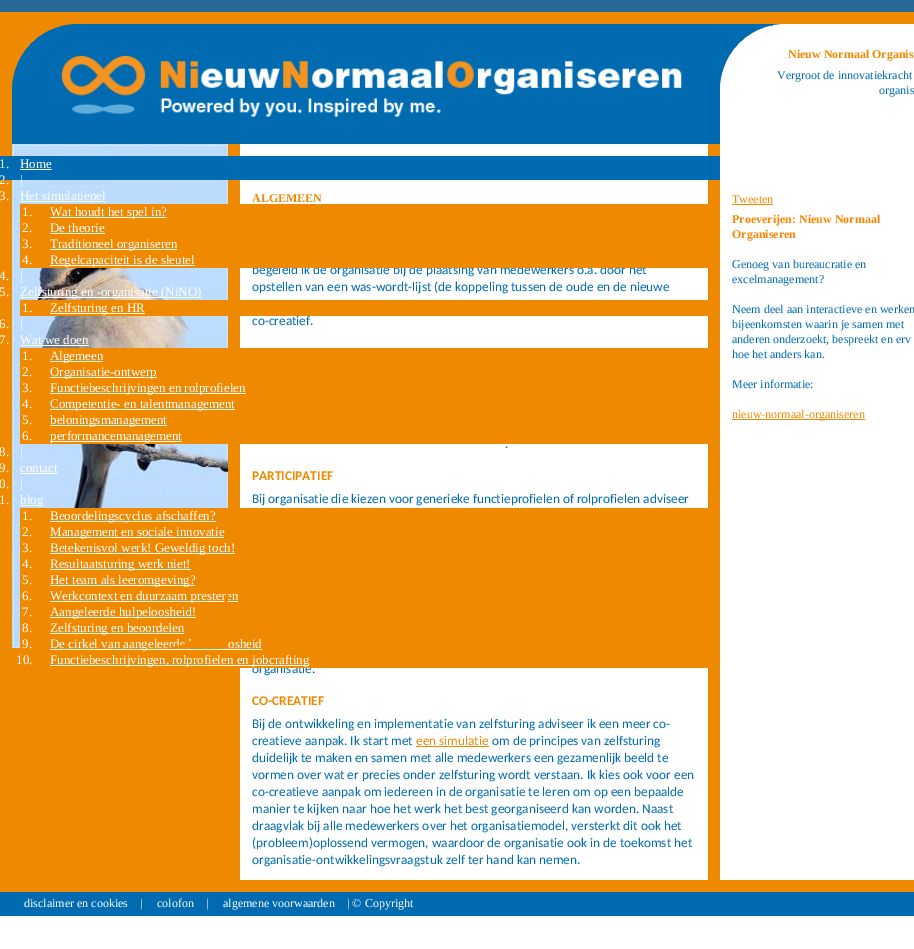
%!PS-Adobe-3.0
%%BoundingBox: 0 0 914 949
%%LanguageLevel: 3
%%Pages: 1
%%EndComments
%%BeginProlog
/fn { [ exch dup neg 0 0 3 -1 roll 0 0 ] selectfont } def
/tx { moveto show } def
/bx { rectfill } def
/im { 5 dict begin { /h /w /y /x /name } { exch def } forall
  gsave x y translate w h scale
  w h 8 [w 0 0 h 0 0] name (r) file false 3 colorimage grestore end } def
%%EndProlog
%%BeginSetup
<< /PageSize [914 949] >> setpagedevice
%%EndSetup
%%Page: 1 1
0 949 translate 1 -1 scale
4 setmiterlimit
1 setgray
0 0 914 949 bx
(image0.raw) 0 0 914 12 im
0.937 0.537 0 setrgbcolor
0 12 914 132 bx
0 0.42 0.69 setrgbcolor
12 24 708 120 bx
(image1.raw) 12 24 61 62 im
(image2.raw) 15 55 667 62 im
1 setgray
720 24 194 120 bx
(image3.raw) 720 24 60 60 im
/LiberationSerif-Bold 12 fn
0.937 0.537 0 setrgbcolor
(Nieuw Normaal Organis) 788 58 tx
/LiberationSerif-Regular 12 fn
0 0.42 0.69 setrgbcolor
(Vergroot de innovatiekracht) 777 79 tx
(organis) 879 94 tx
(image4.raw) 0 144 914 736 im
(image5.raw) 12 144 216 504 im
0 156 720 24 bx
/LiberationSerif-Regular 13 fn
1 setgray
(1.) -1 168 tx
(Home) 20 168 tx
20 169 32 1 bx
(2.) -1 184 tx
(|) 20 184 tx
(3.) -1 200 tx
20 201 86 1 bx
(Het simulatiepel) 20 200 tx
/Carlito-Regular 13.3 fn
0 0.42 0.69 setrgbcolor
(begeleid ik de organisatie bij de plaatsing van medewerkers o.a. door het) 252 274 tx
0.937 0.537 0 setrgbcolor
20 204 688 64 bx
/LiberationSerif-Regular 13 fn
1 setgray
(1.) 22 216 tx
50 217 117 1 bx
(Wat houdt het spel in?) 50 216 tx
(2.) 22 232 tx
(De theorie) 50 232 tx
50 233 55 1 bx
(3.) 22 248 tx
50 249 127 1 bx
(Traditioneel organiseren) 50 248 tx
(4.) 22 264 tx
50 265 145 1 bx
(Regelcapaciteit is de sleutel) 50 264 tx
(4.) -1 280 tx
(|) 20 280 tx
(5.) -1 296 tx
20 297 182 1 bx
(Zelfsturing en -organisatie \(NiNO\)) 20 296 tx
/Carlito-Regular 13.3 fn
0 0.42 0.69 setrgbcolor
(co-creatief.) 252 325 tx
0.937 0.537 0 setrgbcolor
20 300 688 16 bx
/LiberationSerif-Regular 13 fn
1 setgray
(1.) 22 312 tx
50 313 95 1 bx
(Zelfsturing en HR) 50 312 tx
(6.) -1 328 tx
(|) 20 328 tx
(7.) -1 344 tx
(Wat we doen) 20 344 tx
20 345 69 1 bx
0.937 0.537 0 setrgbcolor
20 348 688 96 bx
1 setgray
(1.) 22 360 tx
50 361 53 1 bx
(Algemeen) 50 360 tx
(2.) 22 376 tx
50 377 107 1 bx
(Organisatie-ontwerp) 50 376 tx
(3.) 22 392 tx
50 393 196 1 bx
(Functiebeschrijvingen en rolprofielen) 50 392 tx
(4.) 22 408 tx
50 409 185 1 bx
(Competentie- en talentmanagement) 50 408 tx
(5.) 22 424 tx
50 425 117 1 bx
(beloningsmanagement) 50 424 tx
(6.) 22 440 tx
50 441 132 1 bx
(performancemanagement) 50 440 tx
(8.) -1 456 tx
(|) 20 456 tx
(9.) -1 472 tx
(contact) 20 472 tx
20 473 38 1 bx
(0.) -1 488 tx
(|) 20 488 tx
(1.) -1 504 tx
20 505 23 1 bx
(blog) 20 504 tx
/Carlito-Regular 13.3 fn
0 0.42 0.69 setrgbcolor
(organisatie.) 252 673 tx
0.937 0.537 0 setrgbcolor
20 508 688 160 bx
/LiberationSerif-Regular 13 fn
1 setgray
(1.) 22 520 tx
50 521 166 1 bx
(Beoordelingscyclus afschaffen?) 50 520 tx
(2.) 22 536 tx
50 537 174 1 bx
(Management en sociale innovatie) 50 536 tx
(3.) 22 552 tx
50 553 185 1 bx
(Betekenisvol werk! Geweldig toch!) 50 552 tx
(4.) 22 568 tx
50 569 141 1 bx
(Resultaatsturing werk niet!) 50 568 tx
(5.) 22 584 tx
50 585 145 1 bx
(Het team als leeromgeving?) 50 584 tx
(6.) 22 600 tx
50 601 188 1 bx
(Werkcontext en duurzaam presteren) 50 600 tx
(7.) 22 616 tx
50 617 146 1 bx
(Aangeleerde hulpeloosheid!) 50 616 tx
(8.) 22 632 tx
50 633 134 1 bx
(Zelfsturing en beoordelen) 50 632 tx
(9.) 22 648 tx
50 649 212 1 bx
(De cirkel van aangeleer) 50 648 tx
(osheid) 228 648 tx
(10.) 16 664 tx
50 665 259 1 bx
(Functiebeschrijvingen, rolprofielen en jobcrafting) 50 664 tx
/LiberationSerif-Bold 12 fn
0.937 0.537 0 setrgbcolor
(ALGEMEEN) 252 202 tx
/Carlito-Regular 13.3 fn
0 0.42 0.69 setrgbcolor
(opstellen van een was-wordt-lijst \(de koppeling tussen de oude en de nieuwe) 252 291 tx
(.) 505 448 tx
/Carlito-Bold 13.3 fn
0.937 0.537 0 setrgbcolor
(PARTICIPATIEF) 252 480 tx
/Carlito-Regular 13.3 fn
0 0.42 0.69 setrgbcolor
(Bij organisatie die kiezen voor generieke functieprofielen of rolprofielen adviseer) 252 503 tx
/Carlito-Bold 13.3 fn
0.937 0.537 0 setrgbcolor
(CO-CREATIEF) 252 705 tx
/Carlito-Regular 13.3 fn
0 0.42 0.69 setrgbcolor
(Bij de ontwikkeling en implementatie van zelfsturing adviseer ik een meer co-) 252 728 tx
(creatieve aanpak. Ik start met) 252 745 tx
0.937 0.537 0 setrgbcolor
(een simulatie) 416 745 tx
416 746 73 1 bx
0 0.42 0.69 setrgbcolor
(om de principes van zelfsturing) 492 745 tx
(duidelijk te maken en samen met alle medewerkers een gezamenlijk beeld te) 252 762 tx
(vormen over wat er precies onder zelfsturing wordt verstaan. Ik kies ook voor een) 252 779 tx
(co-creatieve aanpak om iedereen in de organisatie te leren om op een bepaalde) 252 796 tx
(manier te kijken naar hoe het werk het best georganiseerd kan worden. Naast) 252 813 tx
(draagvlak bij alle medewerkers over het organisatiemodel, versterkt dit ook het) 252 830 tx
(\(probleem\)oplossend vermogen, waardoor de organisatie ook in de toekomst het) 252 847 tx
(organisatie-ontwikkelingsvraagstuk zelf ter hand kan nemen.) 252 864 tx
/LiberationSerif-Regular 12 fn
0.937 0.537 0 setrgbcolor
(Tweeten) 732 203 tx
732 204 41 1 bx
/LiberationSerif-Bold 12 fn
0.984 0.518 0 setrgbcolor
(Proeverijen: Nieuw Normaal) 732 223 tx
(Organiseren) 732 238 tx
/LiberationSerif-Regular 12 fn
0 0.42 0.69 setrgbcolor
(Genoeg van bureaucratie en) 732 268 tx
(excelmanagement?) 732 283 tx
(Neem deel aan interactieve en werken) 732 313 tx
(bijeenkomsten waarin je samen met) 732 328 tx
(anderen onderzoekt, bespreekt en erv) 732 343 tx
(hoe het anders kan.) 732 358 tx
(Meer informatie:) 732 388 tx
0.937 0.537 0 setrgbcolor
732 419 133 1 bx
(nieuw-normaal-organiseren) 732 418 tx
(image6.raw) 162 594 66 54 im
0 880 914 12 bx
0 0.42 0.69 setrgbcolor
0 892 914 24 bx
1 setgray
(disclaimer en cookies) 24 907 tx
(|) 140 907 tx
(colofon) 157 907 tx
(|) 206 907 tx
(algemene voorwaarden) 223 907 tx
(| © Copyright) 347 907 tx
showpage
%%EOF
